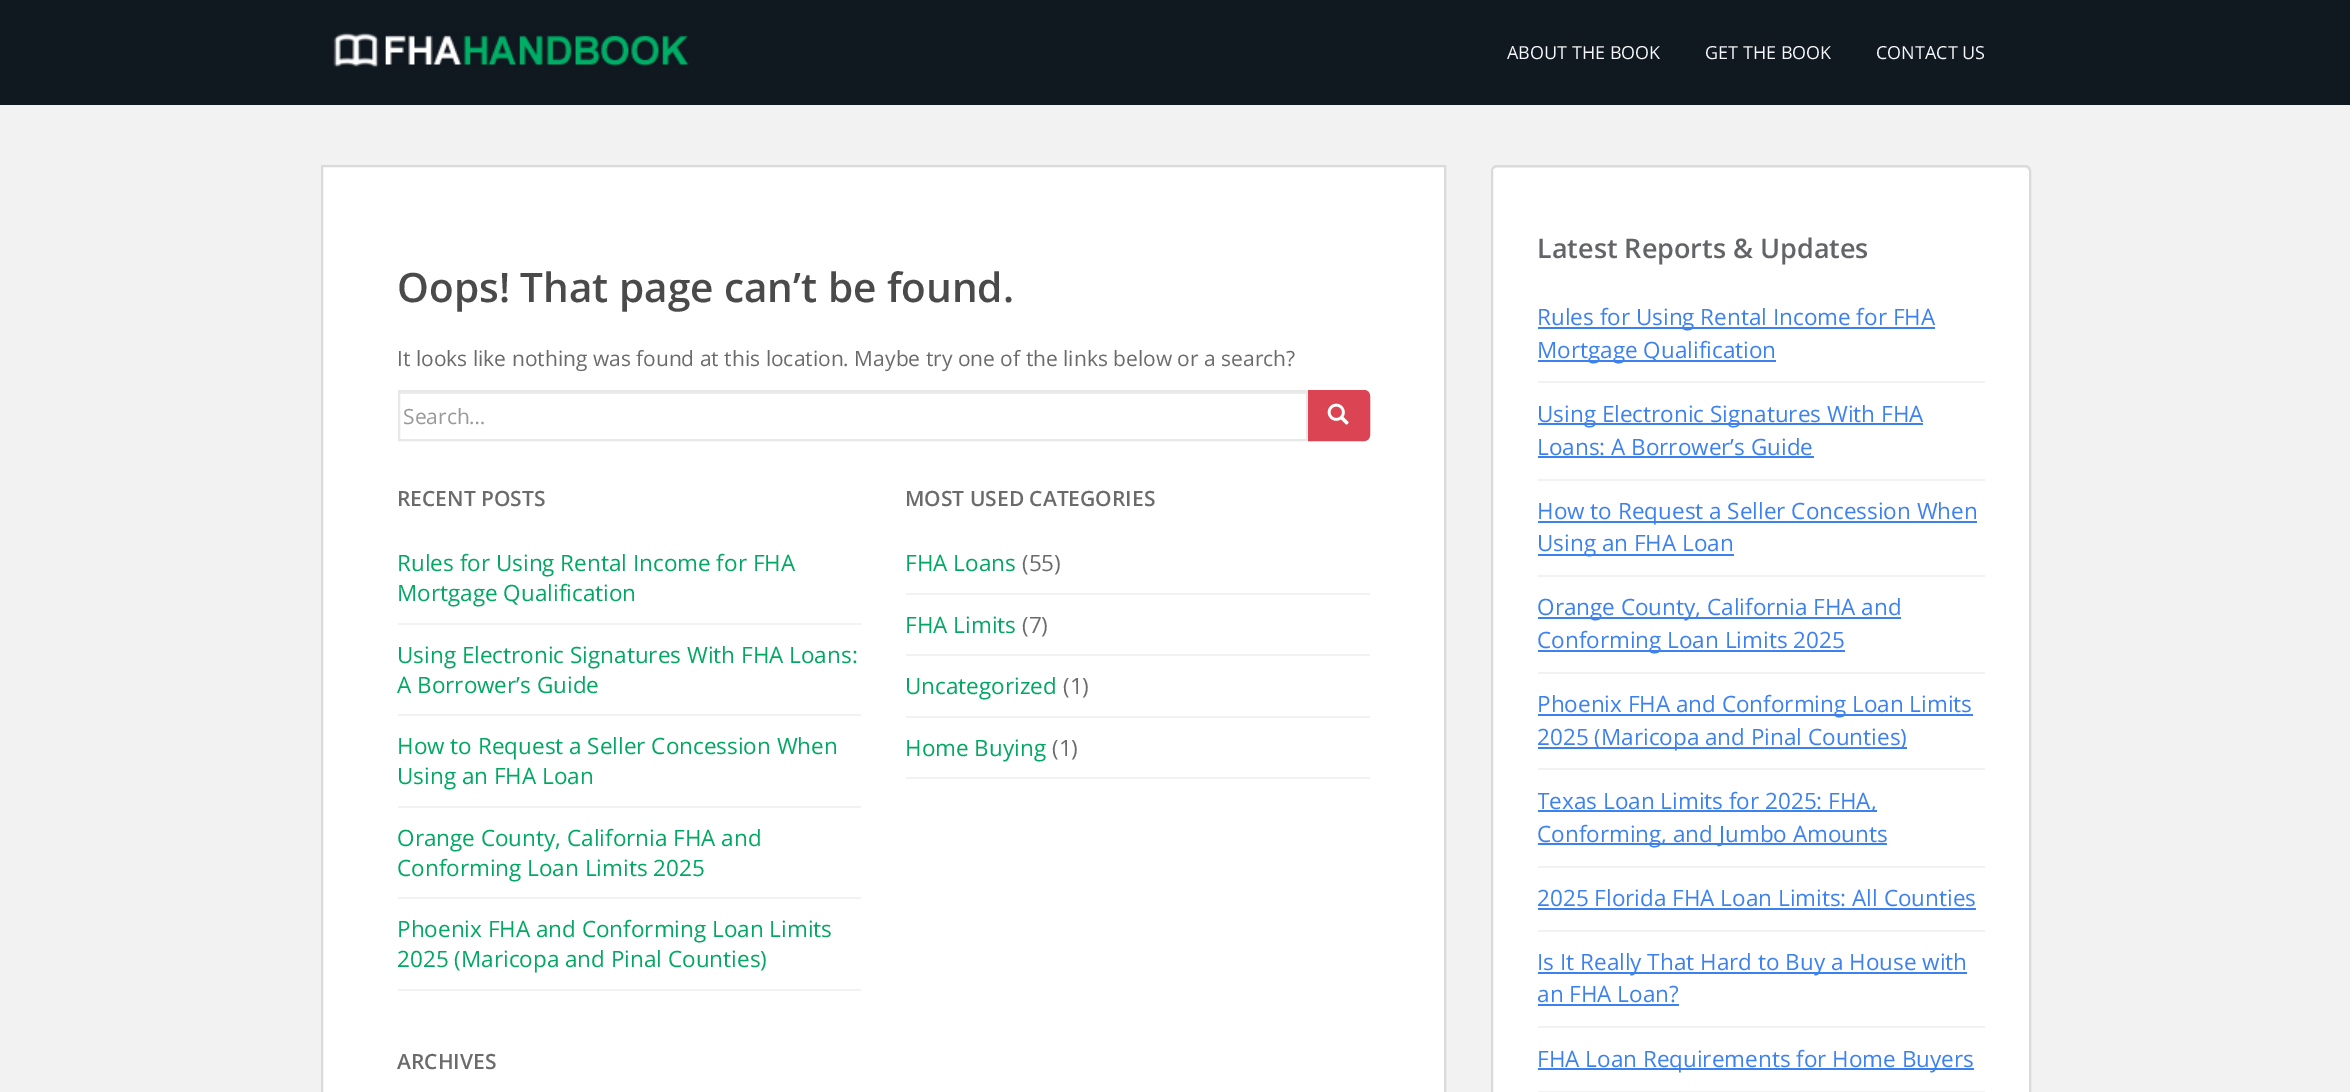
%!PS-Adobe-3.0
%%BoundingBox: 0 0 2350 1092
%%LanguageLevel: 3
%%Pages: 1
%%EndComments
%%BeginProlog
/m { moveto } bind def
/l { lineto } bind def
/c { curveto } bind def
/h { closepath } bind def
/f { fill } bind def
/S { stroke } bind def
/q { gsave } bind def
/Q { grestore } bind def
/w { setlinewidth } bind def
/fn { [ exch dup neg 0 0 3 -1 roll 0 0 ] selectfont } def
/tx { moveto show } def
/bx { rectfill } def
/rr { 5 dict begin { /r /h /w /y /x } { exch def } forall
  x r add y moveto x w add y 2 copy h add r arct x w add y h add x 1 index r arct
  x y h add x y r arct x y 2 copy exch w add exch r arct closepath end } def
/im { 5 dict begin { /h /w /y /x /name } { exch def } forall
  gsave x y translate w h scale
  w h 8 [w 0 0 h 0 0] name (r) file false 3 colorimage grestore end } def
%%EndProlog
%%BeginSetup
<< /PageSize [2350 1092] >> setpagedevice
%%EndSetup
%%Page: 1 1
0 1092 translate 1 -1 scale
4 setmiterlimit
0.949 setgray
0 0 2350 1092 bx
0.063 0.094 0.125 setrgbcolor
0 0 2350 105 bx
(image0.raw) 333 32 356 36 im
/OpenSans-Regular 18 fn
0.961 0.969 0.98 setrgbcolor
(ABOUT THE BOOK) 1507 59 tx
(GET THE BOOK) 1705 59 tx
(CONTACT US) 1876 59 tx
1 setgray
322 166 m 1445 166 l 1445 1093 l 322 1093 l h q f Q
0.855 setgray
2 w
S
/OpenSans-SemiBold 40.5 fn
0.29 setgray
(Oops! That page can’t be found.) 397 302 tx
/OpenSans-Regular 21 fn
0.42 setgray
(It looks like nothing was found at this location. Maybe try one of the links below or a search?) 397 366 tx
0.925 setgray
399 392 908 2 bx
0.91 setgray
399 391 908 49 rectstroke
0.6 setgray
(Search…) 403 424 tx
0.855 0.267 0.325 setrgbcolor
1309 391 m 1364 391 l 1367 391 1369 393 1369 396 c 1369 435 l 1369 438 1367 440 1364 440 c 1309 440 l h q f Q
S
(image1.raw) 1327 403 22 22 im
/OpenSans-SemiBold 21 fn
0.42 setgray
(RECENT POSTS) 397 506 tx
0.949 setgray
398 623 463 2 bx
/OpenSans-Regular 22.5 fn
0.004 0.655 0.384 setrgbcolor
(Rules for Using Rental Income for FHA) 397 571 tx
(Mortgage Qualification) 397 601 tx
0.949 setgray
398 714 463 2 bx
0.004 0.655 0.384 setrgbcolor
(Using Electronic Signatures With FHA Loans:) 397 663 tx
(A Borrower’s Guide) 397 693 tx
0.949 setgray
398 806 463 2 bx
0.004 0.655 0.384 setrgbcolor
(How to Request a Seller Concession When) 397 754 tx
(Using an FHA Loan) 397 784 tx
0.949 setgray
398 897 463 2 bx
0.004 0.655 0.384 setrgbcolor
(Orange County, California FHA and) 397 846 tx
(Conforming Loan Limits 2025) 397 876 tx
0.949 setgray
398 989 463 2 bx
0.004 0.655 0.384 setrgbcolor
(Phoenix FHA and Conforming Loan Limits) 397 937 tx
(2025 \(Maricopa and Pinal Counties\)) 397 967 tx
/OpenSans-SemiBold 21 fn
0.42 setgray
(MOST USED CATEGORIES) 905 506 tx
0.949 setgray
906 593 464 2 bx
/OpenSans-Regular 22.5 fn
0.004 0.655 0.384 setrgbcolor
(FHA Loans) 905 571 tx
0.42 setgray
(\(55\)) 1022 571 tx
0.949 setgray
906 654 464 2 bx
0.004 0.655 0.384 setrgbcolor
(FHA Limits) 905 633 tx
0.42 setgray
(\(7\)) 1022 633 tx
0.949 setgray
906 716 464 2 bx
0.004 0.655 0.384 setrgbcolor
(Uncategorized) 905 694 tx
0.42 setgray
(\(1\)) 1063 694 tx
0.949 setgray
906 777 464 2 bx
0.004 0.655 0.384 setrgbcolor
(Home Buying) 905 756 tx
0.42 setgray
(\(1\)) 1052 756 tx
/OpenSans-SemiBold 21 fn
(ARCHIVES) 397 1069 tx
1 setgray
1491 165 540 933 6 rr f
0.949 setgray
1497 168 m 2025 168 l 2027 168 2030 170 2030 172 c 2030 169 2028 167 2025 167 c 1498 167 l 1496 167 1495 168 1494 169 c h f
0.855 setgray
1492 166 538 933 5 rr S
/OpenSans-SemiBold 27 fn
0.388 0.392 0.404 setrgbcolor
(Latest Reports & Updates) 1537 258 tx
0.949 setgray
1538 381 447 2 bx
0.239 0.506 0.933 setrgbcolor
1538 327 397 2 bx
/OpenSans-Regular 22.5 fn
(Rules for Using Rental Income for FHA) 1537 325 tx
1538 360 238 2 bx
(Mortgage Qualification) 1537 358 tx
0.949 setgray
1538 479 447 2 bx
0.239 0.506 0.933 setrgbcolor
1538 423 385 2 bx
(Using Electronic Signatures With FHA) 1537 422 tx
(Loans: A Borrower’s Guide) 1537 455 tx
1538 456 276 2 bx
0.949 setgray
1538 575 447 2 bx
0.239 0.506 0.933 setrgbcolor
1538 521 439 2 bx
(How to Request a Seller Concession When) 1537 519 tx
1538 554 196 2 bx
(Using an FHA Loan) 1537 551 tx
0.949 setgray
1538 672 447 2 bx
0.239 0.506 0.933 setrgbcolor
1538 617 363 2 bx
(Orange County, California FHA and) 1537 615 tx
1538 650 307 2 bx
(Conforming Loan Limits 2025) 1537 648 tx
0.949 setgray
1538 768 447 2 bx
0.239 0.506 0.933 setrgbcolor
1538 714 435 2 bx
(Phoenix FHA and Conforming Loan Limits) 1537 712 tx
1538 747 369 2 bx
(2025 \(Maricopa and Pinal Counties\)) 1537 745 tx
0.949 setgray
1538 866 447 2 bx
0.239 0.506 0.933 setrgbcolor
1538 810 339 2 bx
q
1538 234 447 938 rectclip
(Texas Loan Limits for 2025: FHA,) 1537 809 tx
Q
1538 843 349 2 bx
(Conforming, and Jumbo Amounts) 1537 842 tx
0.949 setgray
1538 930 447 2 bx
0.239 0.506 0.933 setrgbcolor
(2025 Florida FHA Loan Limits: All Counties) 1537 906 tx
1538 908 438 2 bx
0.949 setgray
1538 1026 447 2 bx
0.239 0.506 0.933 setrgbcolor
1538 972 429 2 bx
(Is It Really That Hard to Buy a House with) 1537 970 tx
(an FHA Loan?) 1537 1002 tx
1538 1004 141 2 bx
0.949 setgray
1538 1091 447 1 bx
0.239 0.506 0.933 setrgbcolor
1538 1068 436 2 bx
(FHA Loan Requirements for Home Buyers) 1537 1067 tx
showpage
%%EOF
